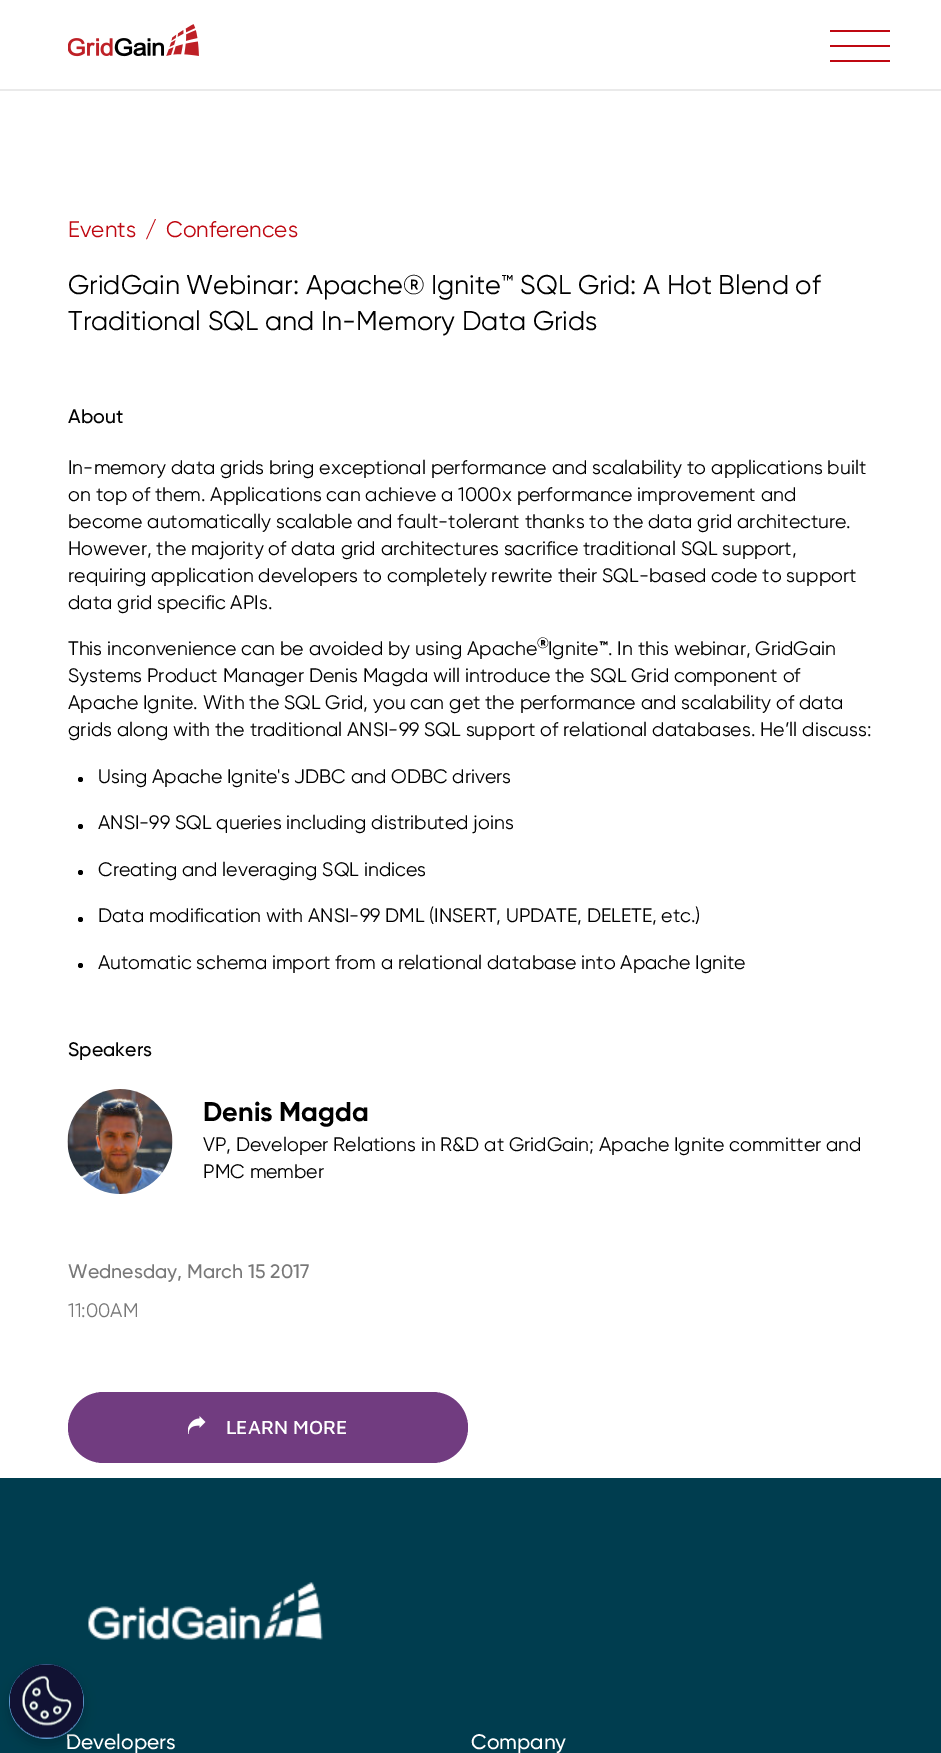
%!PS-Adobe-3.0
%%BoundingBox: 0 0 941 1753
%%LanguageLevel: 3
%%Pages: 1
%%EndComments
%%BeginProlog
/f { fill } bind def
/fn { [ exch dup neg 0 0 3 -1 roll 0 0 ] selectfont } def
/tx { moveto show } def
/bx { rectfill } def
/al { dup .setfillconstantalpha .setstrokeconstantalpha } def
/ci { newpath 0 360 arc closepath } def
/rr { 5 dict begin { /r /h /w /y /x } { exch def } forall
  x r add y moveto x w add y 2 copy h add r arct x w add y h add x 1 index r arct
  x y h add x y r arct x y 2 copy exch w add exch r arct closepath end } def
/sh { 12 dict begin { /a /b /q /h /w /y /x } { exch def } forall gsave /was 0 def
  9 -2 -9 { dup b mul 4 div /e exch def 1 sub .425 mul 2.718 exch exp 1 add a .99 .min exch div /now exch def
    1 1 now sub 1 was sub div sub al /was now def
    w h .min e 2 mul add 0 gt { x e sub y e sub w e 2 mul add h e 2 mul add
      q e add b .6 mul add w h .min 2 div e add .min 0 .max rr fill } if } for grestore end } def
/im { 5 dict begin { /h /w /y /x /name } { exch def } forall
  gsave x y translate w h scale
  w h 8 [w 0 0 h 0 0] name (r) file false 3 colorimage grestore end } def
%%EndProlog
%%BeginSetup
<< /PageSize [941 1753] /PageUsesTransparency true >> setpagedevice
%%EndSetup
%%Page: 1 1
0 .pushpdf14devicefilter
0 1753 translate 1 -1 scale
4 setmiterlimit
1 setgray
0 0 941 1753 bx
0 0.239 0.31 setrgbcolor
0 1478 941 275 bx
0 setgray
9 1670 75 75 37.5 6 0.2 sh
/Gilroy-Medium 21 fn
1 setgray
(Developers) 66 1749 tx
0.416 0.667 0.894 setrgbcolor
46.5 1701.5 37.5 ci f
(image0.raw) 9 1664 75 75 im
0.918 setgray
0 89 941 2 bx
(image1.raw) 68 24 131 33 im
0.749 0.031 0.067 setrgbcolor
830 45 60 2 bx
830 60 60 2 bx
830 30 60 2 bx
/Gilroy-Regular 22.5 fn
(Events) 68 237 tx
(/) 145 237 tx
(Conferences) 166 237 tx
/Gilroy-Regular 27 fn
0 setgray
(GridGain Webinar: Apache® Ignite™ SQL Grid: A Hot Blend of) 68 294 tx
(Traditional SQL and In-Memory Data Grids) 68 330 tx
/Gilroy-Medium 19.5 fn
(About) 68 423 tx
/Gilroy-Regular 19.5 fn
(In-memory data grids bring exceptional performance and scalability to applications built) 68 474 tx
(on top of them. Applications can achieve a 1000x performance improvement and) 68 501 tx
(become automatically scalable and fault-tolerant thanks to the data grid architecture.) 68 528 tx
(However, the majority of data grid architectures sacrifice traditional SQL support,) 68 555 tx
(requiring application developers to completely rewrite their SQL-based code to support) 68 582 tx
(data grid specific APIs.) 68 609 tx
(This inconvenience can be avoided by using Apache) 68 655 tx
/Gilroy-Bold 15 fn
(®) 537 648 tx
/Gilroy-Regular 19.5 fn
(Ignite) 548 655 tx
/Gilroy-Bold 19.5 fn
(™) 599 655 tx
/Gilroy-Regular 19.5 fn
(. In this webinar, GridGain) 608 655 tx
(Systems Product Manager Denis Magda will introduce the SQL Grid component of) 68 682 tx
(Apache Ignite. With the SQL Grid, you can get the performance and scalability of data) 68 709 tx
(grids along with the traditional ANSI-99 SQL support of relational databases. He’ll discuss:) 68 736 tx
80.5 779.5 2.5 ci f
(Using Apache Ignite's JDBC and ODBC drivers) 98 783 tx
80.5 826.5 2.5 ci f
(ANSI-99 SQL queries including distributed joins) 98 829 tx
80.5 872.5 2.5 ci f
(Creating and leveraging SQL indices) 98 876 tx
80.5 919.5 2.5 ci f
(Data modification with ANSI-99 DML \(INSERT, UPDATE, DELETE, etc.\)) 98 922 tx
80.5 965.5 2.5 ci f
(Automatic schema import from a relational database into Apache Ignite) 98 969 tx
/Gilroy-Medium 19.5 fn
(Speakers) 68 1056 tx
(image2.raw) 67 1089 106 105 im
/Gilroy-Bold 27 fn
(Denis Magda) 203 1121 tx
/Gilroy-Regular 19.5 fn
(VP, Developer Relations in R&D at GridGain; Apache Ignite committer and) 203 1151 tx
(PMC member) 203 1178 tx
/Gilroy-Medium 19.5 fn
0.471 setgray
(Wednesday, March 15 2017) 68 1278 tx
/Gilroy-Regular 19.5 fn
(11:00AM) 68 1317 tx
0.443 0.235 0.502 setrgbcolor
68 1392 400 71 35.5 rr f
(image3.raw) 188 1416 18 18 im
/MavenPro-Medium 19.5 fn
1 setgray
(LEARN MORE) 226 1434 tx
(image4.raw) 88 1582 235 58 im
/Gilroy-Medium 21 fn
(Company) 471 1749 tx
.poppdf14devicefilter showpage
%%EOF
